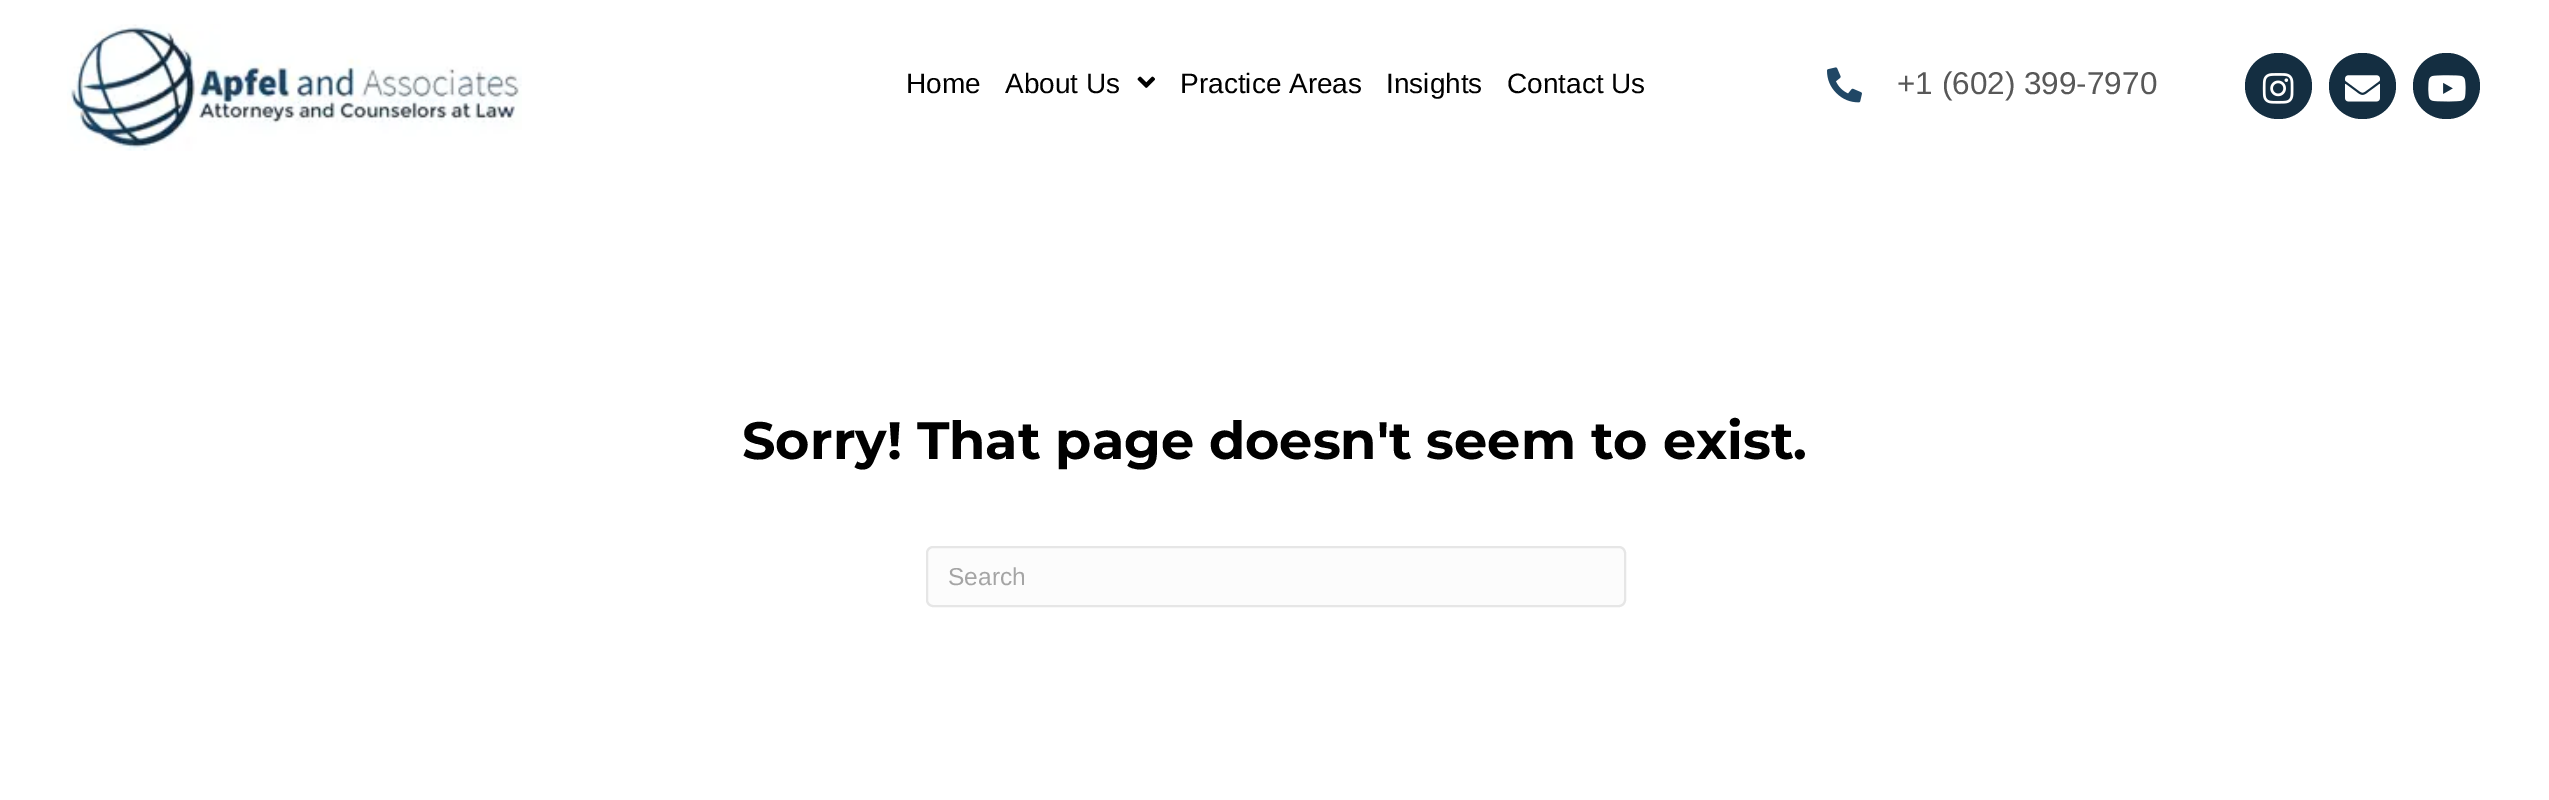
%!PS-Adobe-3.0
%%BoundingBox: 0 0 2549 800
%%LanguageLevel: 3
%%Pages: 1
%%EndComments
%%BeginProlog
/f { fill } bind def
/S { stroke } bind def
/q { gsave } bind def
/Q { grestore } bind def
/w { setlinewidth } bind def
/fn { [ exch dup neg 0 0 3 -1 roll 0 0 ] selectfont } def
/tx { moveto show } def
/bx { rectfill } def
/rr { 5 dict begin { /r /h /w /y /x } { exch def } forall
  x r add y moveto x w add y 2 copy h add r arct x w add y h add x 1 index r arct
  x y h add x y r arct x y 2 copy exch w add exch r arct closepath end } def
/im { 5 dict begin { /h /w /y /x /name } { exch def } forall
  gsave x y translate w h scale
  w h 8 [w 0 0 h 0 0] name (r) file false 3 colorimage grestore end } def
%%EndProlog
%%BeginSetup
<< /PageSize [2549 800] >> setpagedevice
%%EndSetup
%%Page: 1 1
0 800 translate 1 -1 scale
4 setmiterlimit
1 setgray
0 0 2549 800 bx
(image0.raw) 67 24 455 127 im
/LiberationSans-Regular 28 fn
0 setgray
(Home) 906 93 tx
(About Us) 1005 93 tx
(image1.raw) 1137 76 18 12 im
(Practice Areas) 1180 93 tx
(Insights) 1386 93 tx
(Contact Us) 1507 93 tx
(image2.raw) 1827 67 35 36 im
/LiberationSans-Regular 31.5 fn
0.345 setgray
(+1 \(602\) 399-7970) 1897 94 tx
0.078 0.18 0.255 setrgbcolor
2245 53 67 66 33 rr f
(image3.raw) 2262 73 32 31 im
2329 53 67 66 33 rr f
(image4.raw) 2345 75 35 27 im
2413 53 67 66 33 rr f
(image5.raw) 2428 75 38 27 im
/Montserrat-Thin 52.5 fn
0 setgray
(Sorry! That page doesn't seem to exist.) 742 459 tx
0.988 setgray
927 547 698 59 6 rr q f Q
0.902 setgray
2 w
S
/LiberationSans-Regular 24.5 fn
0.647 setgray
(Search) 948 585 tx
showpage
%%EOF
